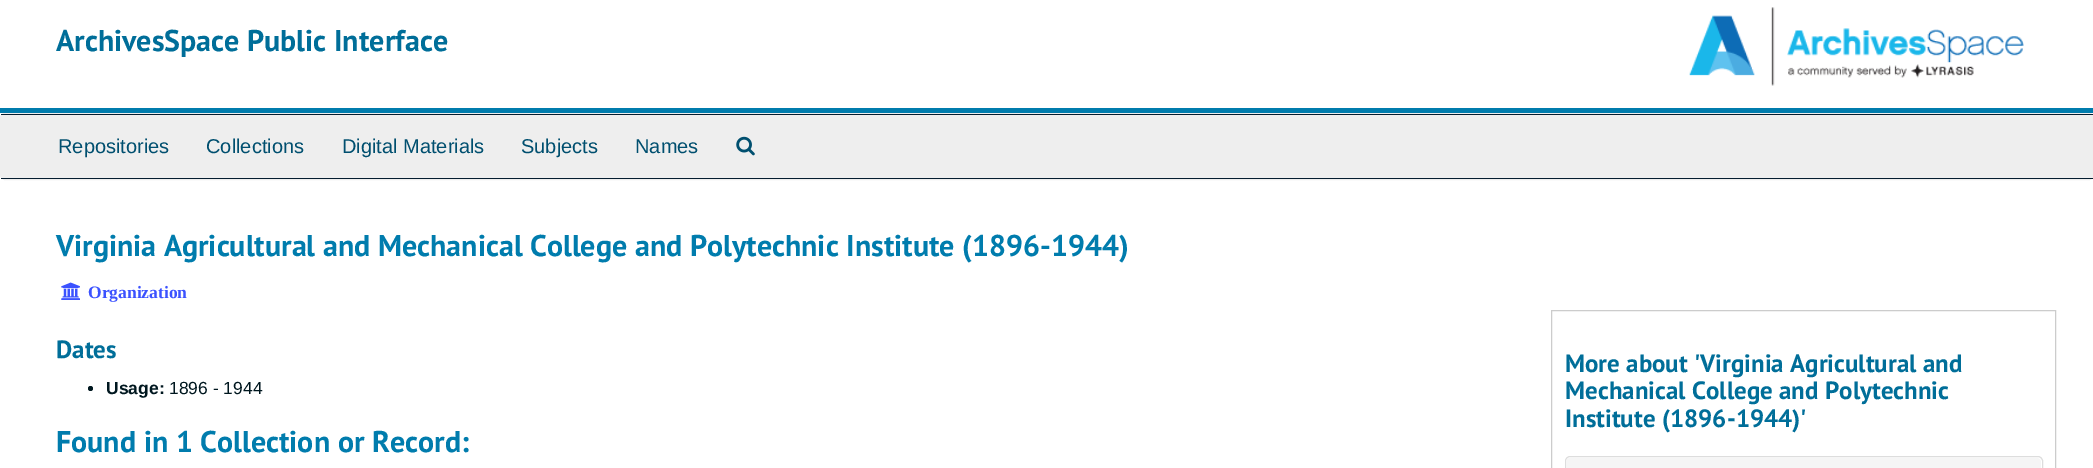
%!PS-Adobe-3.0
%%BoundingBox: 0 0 2093 468
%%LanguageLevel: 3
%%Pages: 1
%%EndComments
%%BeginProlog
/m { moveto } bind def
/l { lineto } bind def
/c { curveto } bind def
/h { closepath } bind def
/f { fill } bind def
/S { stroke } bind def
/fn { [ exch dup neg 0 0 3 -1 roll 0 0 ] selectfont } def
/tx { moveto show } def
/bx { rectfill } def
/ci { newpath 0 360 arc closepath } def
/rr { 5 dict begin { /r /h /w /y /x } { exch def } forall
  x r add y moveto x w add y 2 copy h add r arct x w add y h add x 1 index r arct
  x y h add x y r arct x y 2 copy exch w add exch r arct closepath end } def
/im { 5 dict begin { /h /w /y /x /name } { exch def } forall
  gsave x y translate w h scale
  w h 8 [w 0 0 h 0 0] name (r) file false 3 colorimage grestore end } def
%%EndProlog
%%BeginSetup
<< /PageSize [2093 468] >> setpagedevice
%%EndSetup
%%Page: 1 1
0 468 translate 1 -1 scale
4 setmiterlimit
1 setgray
0 0 2093 468 bx
0 0.486 0.678 setrgbcolor
0 108 2093 5 bx
/PTSans-Bold 30 fn
0 0.431 0.6 setrgbcolor
(ArchivesSpace Public Interface) 56 51 tx
(image0.raw) 1689 7 335 79 im
0.933 setgray
0.5 113.5 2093 66 4.5 rr S
1 115 2092 63 bx
0.016 0.11 0.184 setrgbcolor
1 114 2092 1 bx
1 178 2092 1 bx
/LiberationSans-Regular 20 fn
0 0.31 0.435 setrgbcolor
(Repositories) 58 153 tx
(Collections) 206 153 tx
(Digital Materials) 342 153 tx
(Subjects) 521 153 tx
(Names) 635 153 tx
(image1.raw) 736 136 19 20 im
/PTSans-Bold 30 fn
0 0.486 0.678 setrgbcolor
(Virginia Agricultural and Mechanical College and Polytechnic Institute \(1896-1944\)) 56 256 tx
(image2.raw) 61 282 19 18 im
/LiberationSerif-Bold 17.5 fn
0.231 0.322 1 setrgbcolor
(Organization) 88 298 tx
/PTSans-Bold 25 fn
0 0.431 0.6 setrgbcolor
(Dates) 56 358 tx
0 0.09 0.122 setrgbcolor
90.5 388.5 2.5 ci f
/LiberationSans-Bold 17.5 fn
(Usage:) 106 394 tx
/LiberationSans-Regular 17.5 fn
(1896 - 1944) 169 394 tx
/PTSans-Bold 30 fn
0 0.486 0.678 setrgbcolor
(Found in 1 Collection or Record:) 56 452 tx
0.8 setgray
1551.5 310.5 504 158 rectstroke
/PTSans-Bold 25 fn
0 0.431 0.6 setrgbcolor
(More about 'Virginia Agricultural and) 1565 372 tx
(Mechanical College and Polytechnic) 1565 399 tx
(Institute \(1896-1944\)') 1565 427 tx
0.867 setgray
1565.5 456.5 477 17 4.5 rr S
0.961 setgray
1570 458 m 2037 458 l 2039 458 2041 460 2041 462 c 2041 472 l 1566 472 l 1566 462 l 1566 460 1568 458 1570 458 c h f
showpage
%%EOF
